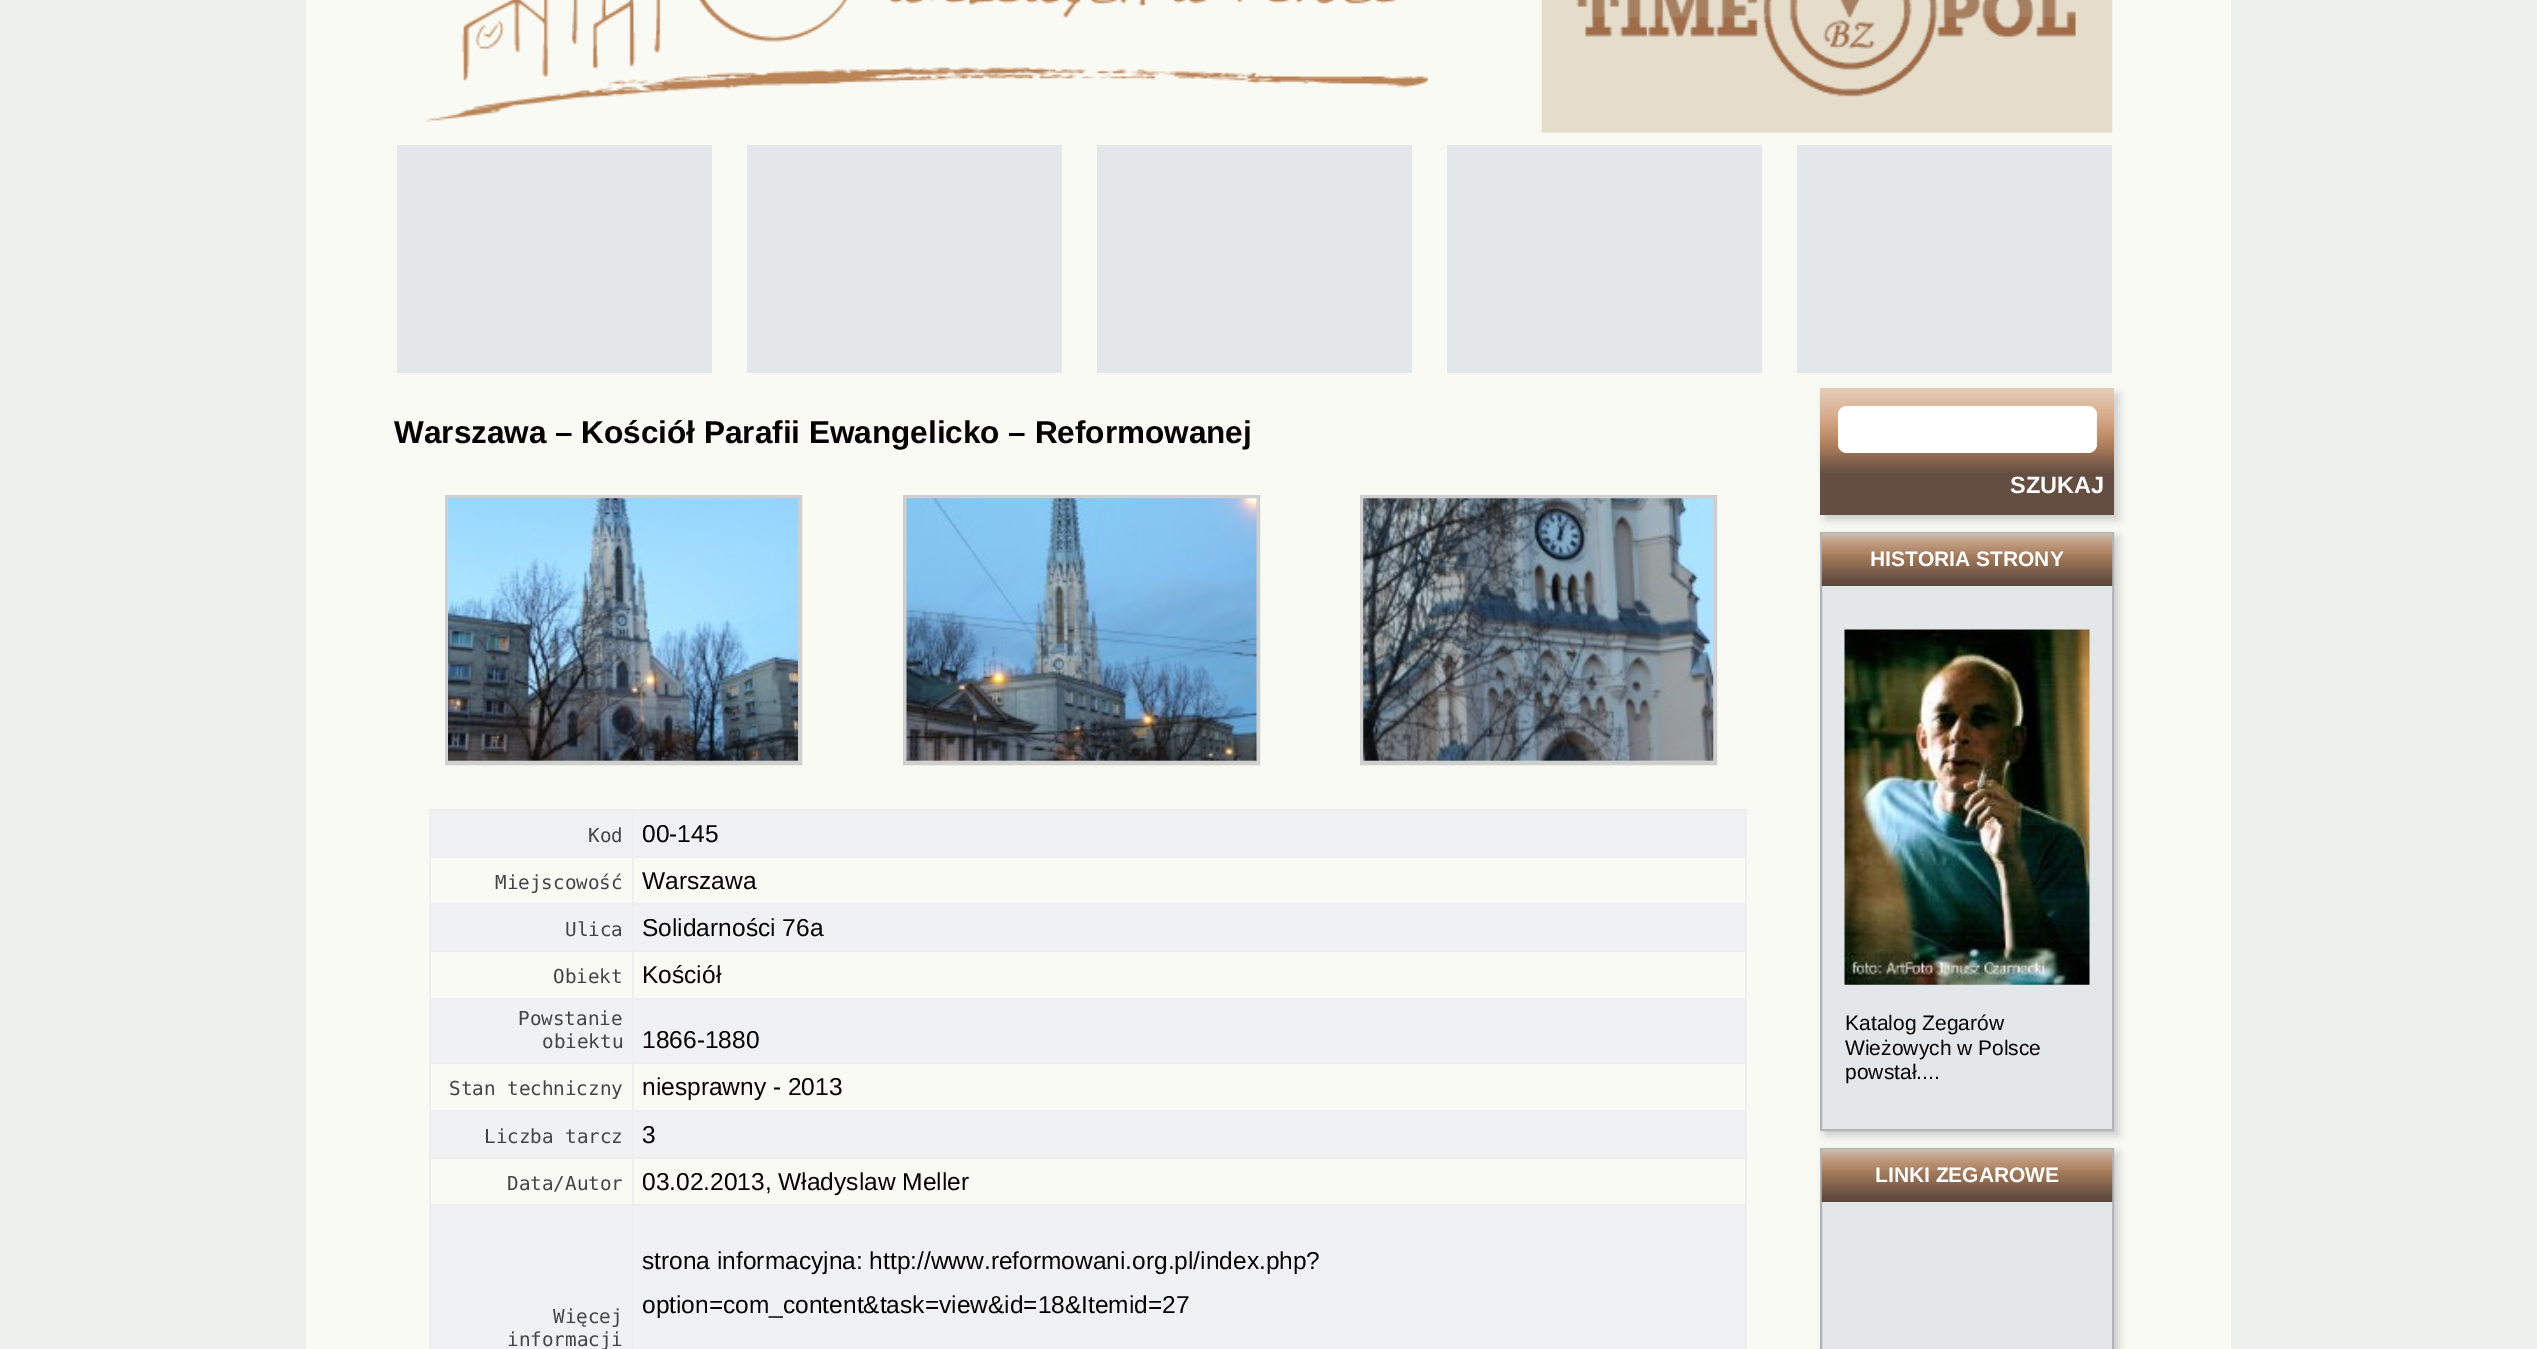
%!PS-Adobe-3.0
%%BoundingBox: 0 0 2537 1349
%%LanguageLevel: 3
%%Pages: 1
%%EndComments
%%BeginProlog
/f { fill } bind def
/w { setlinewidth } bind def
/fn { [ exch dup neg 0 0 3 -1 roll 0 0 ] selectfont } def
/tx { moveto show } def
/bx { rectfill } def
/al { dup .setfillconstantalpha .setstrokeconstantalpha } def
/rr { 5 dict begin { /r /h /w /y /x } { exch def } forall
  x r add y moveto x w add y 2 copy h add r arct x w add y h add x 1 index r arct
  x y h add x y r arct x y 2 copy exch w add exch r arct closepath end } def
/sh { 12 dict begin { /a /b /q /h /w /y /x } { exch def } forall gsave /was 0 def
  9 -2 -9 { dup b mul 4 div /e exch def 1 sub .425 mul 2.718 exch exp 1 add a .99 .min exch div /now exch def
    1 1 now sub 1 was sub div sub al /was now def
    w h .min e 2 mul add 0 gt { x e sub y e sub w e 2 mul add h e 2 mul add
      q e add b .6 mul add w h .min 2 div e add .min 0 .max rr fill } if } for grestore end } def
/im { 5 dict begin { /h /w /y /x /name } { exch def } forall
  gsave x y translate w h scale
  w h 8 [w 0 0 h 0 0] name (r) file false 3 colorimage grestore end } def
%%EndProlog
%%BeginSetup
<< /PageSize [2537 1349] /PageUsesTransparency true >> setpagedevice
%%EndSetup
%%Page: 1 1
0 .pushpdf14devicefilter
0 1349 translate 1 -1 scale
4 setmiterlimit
0.929 0.941 0.922 setrgbcolor
0 0 2537 1349 bx
0.98 0.98 0.957 setrgbcolor
306 0 1925 1349 bx
(image0.raw) 425 0 1003 122 im
(image1.raw) 1541 0 572 133 im
0.894 0.906 0.914 setrgbcolor
397 145 315 228 bx
747 145 315 228 bx
1097 145 315 228 bx
1447 145 315 228 bx
1797 145 315 228 bx
/LiberationSans-Bold 31.5 fn
0.016 0 0 setrgbcolor
(Warszawa – Kościół Parafii Ewangelicko – Reformowanej) 394 443 tx
0.812 setgray
4 w
447 497 353 266 rectstroke
(image2.raw) 448 498 350 263 im
905 497 353 266 rectstroke
(image3.raw) 906 498 351 263 im
1362 497 353 266 rectstroke
(image4.raw) 1363 498 351 263 im
0.941 0.945 0.949 setrgbcolor
431 811 201 45 bx
0.933 setgray
632 809 1115 2 bx
632 856 1115 2 bx
632 903 1115 2 bx
632 950 1115 2 bx
632 998 1115 2 bx
632 1062 1115 2 bx
632 1110 1115 2 bx
632 1157 1115 2 bx
632 1204 1115 2 bx
632 1204 2 145 bx
429 1204 205 2 bx
632 1157 2 49 bx
429 1157 205 2 bx
632 1110 2 49 bx
429 1110 205 2 bx
632 1062 2 49 bx
429 1062 205 2 bx
632 998 2 66 bx
429 998 205 2 bx
632 950 2 49 bx
429 950 205 2 bx
632 903 2 49 bx
429 903 205 2 bx
632 856 2 49 bx
429 856 205 2 bx
632 809 2 49 bx
429 809 205 2 bx
429 1204 2 145 bx
429 1157 2 49 bx
429 1110 2 49 bx
429 1062 2 49 bx
429 998 2 66 bx
429 950 2 49 bx
429 903 2 49 bx
429 856 2 49 bx
429 809 2 49 bx
/DejaVuSansMono-Regular 19.25 fn
0.267 setgray
(Kod) 588 842 tx
0.941 0.945 0.949 setrgbcolor
634 811 1111 45 bx
0.933 setgray
1745 1204 2 145 bx
1745 1157 2 49 bx
1745 1110 2 49 bx
1745 1062 2 49 bx
1745 998 2 66 bx
1745 950 2 49 bx
1745 903 2 49 bx
1745 856 2 49 bx
1745 809 2 49 bx
/LiberationSans-Regular 24.5 fn
0.016 0 0 setrgbcolor
(00-145) 642 842 tx
/DejaVuSansMono-Regular 19.25 fn
0.267 setgray
(Miejscowość) 495 889 tx
/LiberationSans-Regular 24.5 fn
0.016 0 0 setrgbcolor
(Warszawa) 642 889 tx
0.941 0.945 0.949 setrgbcolor
431 905 201 45 bx
/DejaVuSansMono-Regular 19.25 fn
0.267 setgray
(Ulica) 565 936 tx
0.941 0.945 0.949 setrgbcolor
634 905 1111 45 bx
/LiberationSans-Regular 24.5 fn
0.016 0 0 setrgbcolor
(Solidarności 76a) 642 936 tx
/DejaVuSansMono-Regular 19.25 fn
0.267 setgray
(Obiekt) 553 983 tx
/LiberationSans-Regular 24.5 fn
0.016 0 0 setrgbcolor
(Kościół) 642 983 tx
0.941 0.945 0.949 setrgbcolor
431 1000 201 62 bx
/DejaVuSansMono-Regular 19.25 fn
0.267 setgray
(Powstanie) 518 1025 tx
(obiektu) 542 1048 tx
0.941 0.945 0.949 setrgbcolor
634 1000 1111 62 bx
/LiberationSans-Regular 24.5 fn
0.016 0 0 setrgbcolor
(1866-1880) 642 1048 tx
/DejaVuSansMono-Regular 19.25 fn
0.267 setgray
(Stan techniczny) 449 1095 tx
/LiberationSans-Regular 24.5 fn
0.016 0 0 setrgbcolor
(niesprawny - 2013) 642 1095 tx
0.941 0.945 0.949 setrgbcolor
431 1112 201 45 bx
/DejaVuSansMono-Regular 19.25 fn
0.267 setgray
(Liczba tarcz) 484 1143 tx
0.941 0.945 0.949 setrgbcolor
634 1112 1111 45 bx
/LiberationSans-Regular 24.5 fn
0.016 0 0 setrgbcolor
(3) 642 1143 tx
/DejaVuSansMono-Regular 19.25 fn
0.267 setgray
(Data/Autor) 507 1190 tx
/LiberationSans-Regular 24.5 fn
0.016 0 0 setrgbcolor
(03.02.2013, Władyslaw Meller) 642 1190 tx
0.941 0.945 0.949 setrgbcolor
634 1206 1111 143 bx
0.016 0 0 setrgbcolor
(strona informacyjna: http://www.reformowani.org.pl/index.php?) 642 1269 tx
(option=com_content&task=view&id=18&Itemid=27) 642 1313 tx
0.941 0.945 0.949 setrgbcolor
431 1206 201 143 bx
/DejaVuSansMono-Regular 19.25 fn
0.267 setgray
(Więcej) 553 1323 tx
(informacji) 507 1346 tx
0.8 setgray
1825 394 294 126 0 4.5 1 sh
0.392 0.302 0.255 setrgbcolor
1820 473 294 42 bx
(image5.raw) 1820 388 294 85 im
1 setgray
1838 406 259 47 9 rr f
/LiberationSans-Bold 23.5 fn
(SZUKAJ) 2010 493 tx
0.8 setgray
1825 537 294 599 0 4.5 1 sh
0.894 0.906 0.914 setrgbcolor
1822 585 290 544 bx
0.694 0.71 0.722 setrgbcolor
2 w
1821 533 292 597 rectstroke
(image6.raw) 1821 533 292 53 im
/LiberationSans-Bold 21 fn
1 setgray
(HISTORIA STRONY) 1870 566 tx
(image7.raw) 1844 629 246 356 im
/LiberationSans-Regular 21 fn
0.016 0 0 setrgbcolor
(Katalog Zegarów) 1845 1030 tx
(Wieżowych w Polsce) 1845 1055 tx
(powstał....) 1845 1079 tx
0.8 setgray
1825 1153 294 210 0 4.5 1 sh
0.894 0.906 0.914 setrgbcolor
1822 1201 290 148 bx
0.694 0.71 0.722 setrgbcolor
1821 1149 292 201 rectstroke
(image8.raw) 1821 1149 292 53 im
/LiberationSans-Bold 21 fn
1 setgray
(LINKI ZEGAROWE) 1875 1182 tx
.poppdf14devicefilter showpage
%%EOF
